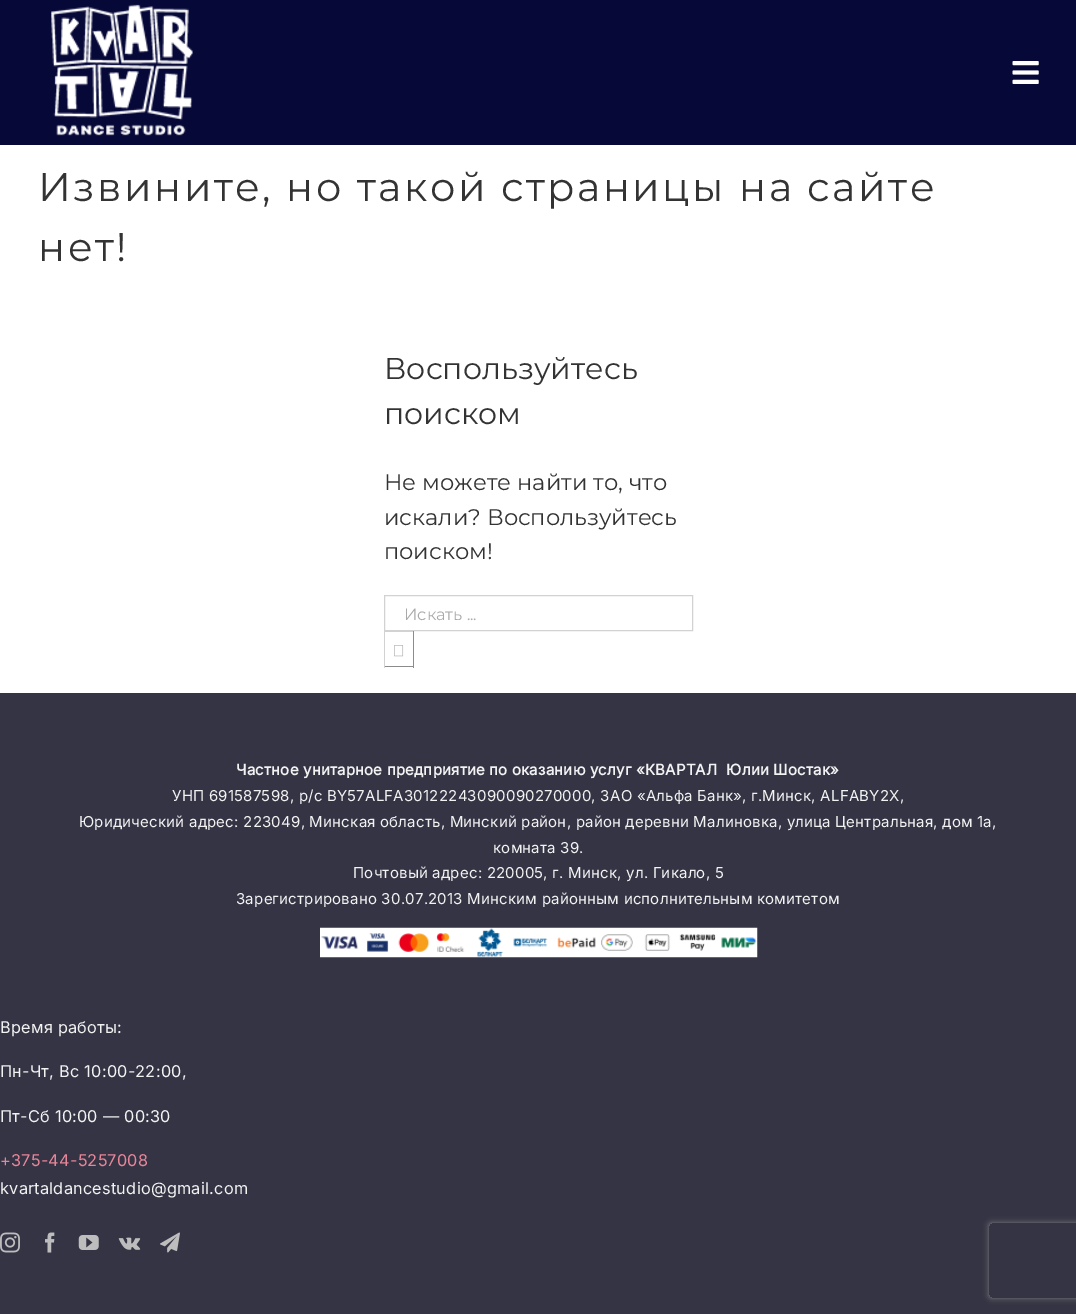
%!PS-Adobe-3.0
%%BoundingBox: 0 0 1076 1314
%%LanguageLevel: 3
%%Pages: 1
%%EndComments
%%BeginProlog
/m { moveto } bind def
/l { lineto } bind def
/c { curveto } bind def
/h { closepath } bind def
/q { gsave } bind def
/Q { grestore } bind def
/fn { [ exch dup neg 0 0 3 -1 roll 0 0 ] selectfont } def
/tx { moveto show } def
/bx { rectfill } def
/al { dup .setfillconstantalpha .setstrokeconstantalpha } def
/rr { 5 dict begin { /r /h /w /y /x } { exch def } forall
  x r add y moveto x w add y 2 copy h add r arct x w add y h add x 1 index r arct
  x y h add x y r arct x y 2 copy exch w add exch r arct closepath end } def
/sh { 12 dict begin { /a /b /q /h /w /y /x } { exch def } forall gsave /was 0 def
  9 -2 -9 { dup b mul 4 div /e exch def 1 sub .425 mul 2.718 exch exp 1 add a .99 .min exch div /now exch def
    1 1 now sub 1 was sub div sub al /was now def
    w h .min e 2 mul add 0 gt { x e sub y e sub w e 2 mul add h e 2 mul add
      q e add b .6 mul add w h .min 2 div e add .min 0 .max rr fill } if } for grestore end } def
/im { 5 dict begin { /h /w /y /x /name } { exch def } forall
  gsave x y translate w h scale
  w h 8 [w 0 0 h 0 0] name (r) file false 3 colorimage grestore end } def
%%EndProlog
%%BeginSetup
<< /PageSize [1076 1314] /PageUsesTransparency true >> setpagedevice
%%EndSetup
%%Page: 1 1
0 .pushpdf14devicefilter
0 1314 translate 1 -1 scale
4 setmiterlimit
1 setgray
0 0 1076 1314 bx
0.024 0.031 0.22 setrgbcolor
0 0 1076 145 bx
(image0.raw) 51 4 142 132 im
(image1.raw) 1012 61 27 23 im
/Montserrat-Regular 40 fn
0.2 setgray
38 201 m 2.5 0 (Извините, но такой страницы на сайте) ashow
38 261 m 2.5 0 (нет!) ashow
/Montserrat-Regular 30 fn
(Воспользуйтесь) 384 379 tx
(поиском) 384 424 tx
/Montserrat-Regular 22.5 fn
(Не можете найти то, что) 384 490 tx
(искали? Воспользуйтесь) 384 525 tx
(поиском!) 384 559 tx
0.824 setgray
384.5 595.5 308 35 rectstroke
/Montserrat-Regular 16.25 fn
0.667 0.663 0.663 setrgbcolor
(Искать ...) 404 620 tx
0.824 setgray
384 631 30 1 bx
0.549 setgray
413 631 1 37 bx
384 666 30 1 bx
0.824 setgray
384 631 1 37 bx
(image2.raw) 394 645 10 12 im
0.204 0.204 0.267 setrgbcolor
0 693 1076 621 bx
/Inter-Bold 15 fn
0.949 setgray
236 775 m 0.22 0 (Частное унитарное предприятие по оказанию услуг «КВАРТАЛ  Юлии Шостак») ashow
/Inter-Regular 15 fn
172 801 m 0.22 0 (УНП 691587598, р/с BY57ALFA30122243090090270000, ЗАО «Альфа Банк», г.Минск, ALFABY2X,) ashow
79 827 m 0.22 0 (Юридический адрес: 223049, Минская область, Минский район, район деревни Малиновка, улица Центральная, дом 1а,) ashow
493 853 m 0.22 0 (комната 39.) ashow
353 878 m 0.22 0 (Почтовый адрес: 220005, г. Минск, ул. Гикало, 5) ashow
236 904 m 0.22 0 (Зарегистрировано 30.07.2013 Минским районным исполнительным комитетом) ashow
(image3.raw) 320 927 438 31 im
/Inter-Regular 16.25 fn
0 1033 m 0.25 0 (Время работы:) ashow
0 1077 m 0.25 0 (Пн-Чт, Вс 10:00-22:00,) ashow
0 1122 m 0.25 0 (Пт-Сб 10:00 — 00:30) ashow
0.91 0.522 0.6 setrgbcolor
0 1166 m 0.25 0 (+375-44-5257008) ashow
0.949 setgray
0 1194 m 0.25 0 (kvartaldancestudio@gmail.com) ashow
(image4.raw) 0 1232 20 21 im
(image5.raw) 45 1232 10 21 im
(image6.raw) 78 1235 21 15 im
(image7.raw) 118 1237 23 13 im
(image8.raw) 160 1232 20 21 im
q
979 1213 m 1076 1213 l 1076 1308 l 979 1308 l h 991.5 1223 m 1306.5 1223 l 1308 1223 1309 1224 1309 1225.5 c 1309 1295.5 l 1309 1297 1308 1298 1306.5 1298 c 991.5 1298 l 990 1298 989 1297 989 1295.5 c 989 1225.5 l 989 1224 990 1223 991.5 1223 c h eoclip newpath
0.502 setgray
989 1223 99 75 2.5 3 1 sh
Q
.poppdf14devicefilter showpage
%%EOF
